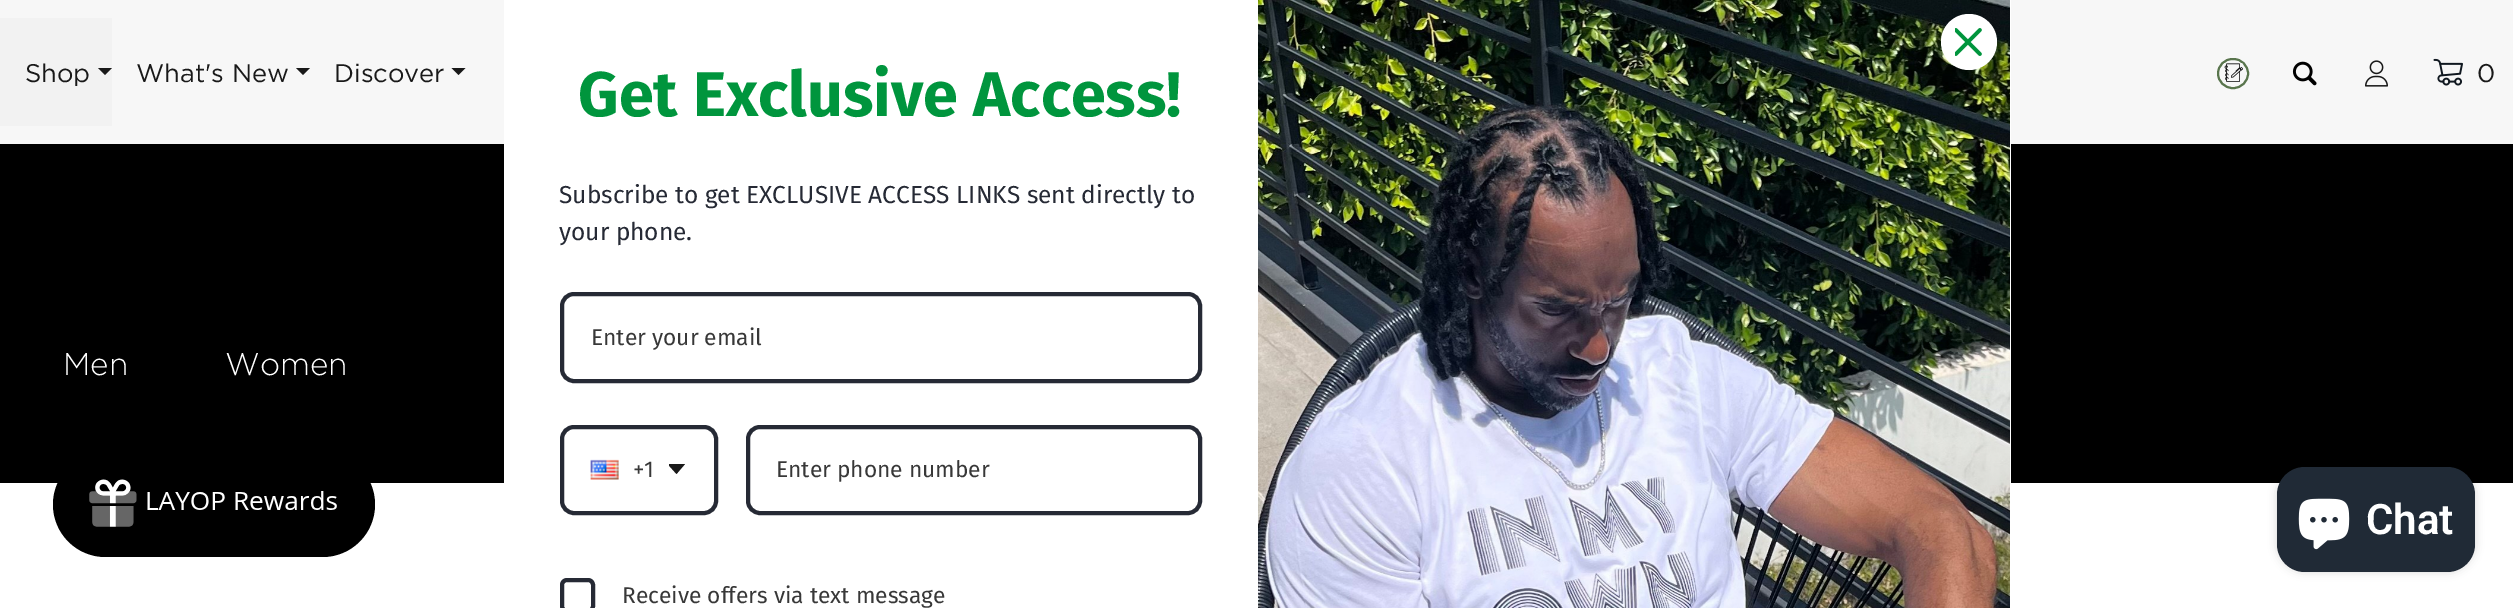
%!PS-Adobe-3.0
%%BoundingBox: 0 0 2513 608
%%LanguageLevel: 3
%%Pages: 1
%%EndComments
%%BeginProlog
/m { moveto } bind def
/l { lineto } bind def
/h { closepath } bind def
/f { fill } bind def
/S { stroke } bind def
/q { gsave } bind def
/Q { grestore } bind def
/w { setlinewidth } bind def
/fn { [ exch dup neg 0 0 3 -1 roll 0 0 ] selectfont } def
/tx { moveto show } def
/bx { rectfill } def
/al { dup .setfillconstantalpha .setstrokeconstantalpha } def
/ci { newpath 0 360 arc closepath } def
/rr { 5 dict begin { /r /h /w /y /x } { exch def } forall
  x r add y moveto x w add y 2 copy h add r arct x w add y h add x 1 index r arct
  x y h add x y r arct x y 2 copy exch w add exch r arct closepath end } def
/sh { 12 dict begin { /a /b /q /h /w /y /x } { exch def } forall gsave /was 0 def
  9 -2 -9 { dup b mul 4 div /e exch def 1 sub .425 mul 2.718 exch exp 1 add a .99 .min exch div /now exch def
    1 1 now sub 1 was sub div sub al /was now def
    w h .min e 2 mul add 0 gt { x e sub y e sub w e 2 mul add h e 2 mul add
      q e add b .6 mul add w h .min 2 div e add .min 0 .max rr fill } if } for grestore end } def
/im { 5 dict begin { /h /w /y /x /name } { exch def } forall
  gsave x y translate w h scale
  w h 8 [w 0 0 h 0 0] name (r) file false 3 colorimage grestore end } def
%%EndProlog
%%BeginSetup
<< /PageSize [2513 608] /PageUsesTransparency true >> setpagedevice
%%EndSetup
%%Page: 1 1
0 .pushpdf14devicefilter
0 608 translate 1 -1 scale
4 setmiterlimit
1 setgray
0 0 2513 608 bx
0.969 setgray
0 0 2513 144 bx
0.949 setgray
0 18 112 108 bx
/Gotham-Regular 25.5 fn
0.098 setgray
(Shop) 25 82 tx
98 68 m 112 68 l 105 75 l h f
0 setgray
0 144 2513 339 bx
/Gotham-Light 31.5 fn
1 setgray
(Men) 63 375 tx
(Women) 225 375 tx
/Gotham-Regular 25.5 fn
0.098 setgray
(What's New) 136 82 tx
296 68 m 310 68 l 303 75 l h f
(Discover) 334 82 tx
451.5 68 m 465.5 68 l 458.5 75 l h f
0.349 0.459 0.302 setrgbcolor
2 w
2218 59 30 29 14.5 rr S
(image0.raw) 2224 63 19 19 im
(image1.raw) 2292 61 25 25 im
(image2.raw) 2365 60 23 27 im
(image3.raw) 2433 58 30 28 im
0.098 setgray
(0) 2477 82 tx
0 setgray
53 452 322 105 52.5 rr f
(image4.raw) 89 479 248 48 im
(image7.raw) 1258 0 752 608 im
1 setgray
1969 42 28 ci f
(image5.raw) 1955 28 27 28 im
504 0 754 483 bx
/FiraSans-Bold 63 fn
0 0.584 0.239 setrgbcolor
(Get Exclusive Access!) 578 116 tx
/FiraSans-Regular 24.5 fn
0.149 0.165 0.208 setrgbcolor
(Subscribe to get EXCLUSIVE ACCESS LINKS sent directly to) 559 203 tx
(your phone.) 559 240 tx
4 w
562 294 638 87 12 rr S
/FiraSans-Regular 22.75 fn
0.22 setgray
(Enter your email) 591 345 tx
0.149 0.165 0.208 setrgbcolor
562 427 154 86 12 rr S
(image6.raw) 590 459 29 21 im
0.22 setgray
(+1) 633 477 tx
q
669 464 17 10 rectclip
0.098 setgray
667.5 464 m 685 464 l 676.5 474 l h eofill
Q
0.149 0.165 0.208 setrgbcolor
748 427 452 86 12 rr S
0.22 setgray
(Enter phone number) 776 477 tx
0.149 0.165 0.208 setrgbcolor
562 580 31 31 5 rr S
0.22 setgray
(Receive offers via text message) 622 603 tx
1 setgray
2010 0 1 483 bx
0 setgray
2277 467 198 105 28 4.5 0.15 sh
0.125 0.165 0.212 setrgbcolor
2277 467 198 105 28 rr f
(image8.raw) 2298 498 52 52 im
/Roboto-SemiBold 42 fn
1 setgray
(Chat) 2366 534 tx
.poppdf14devicefilter showpage
%%EOF
